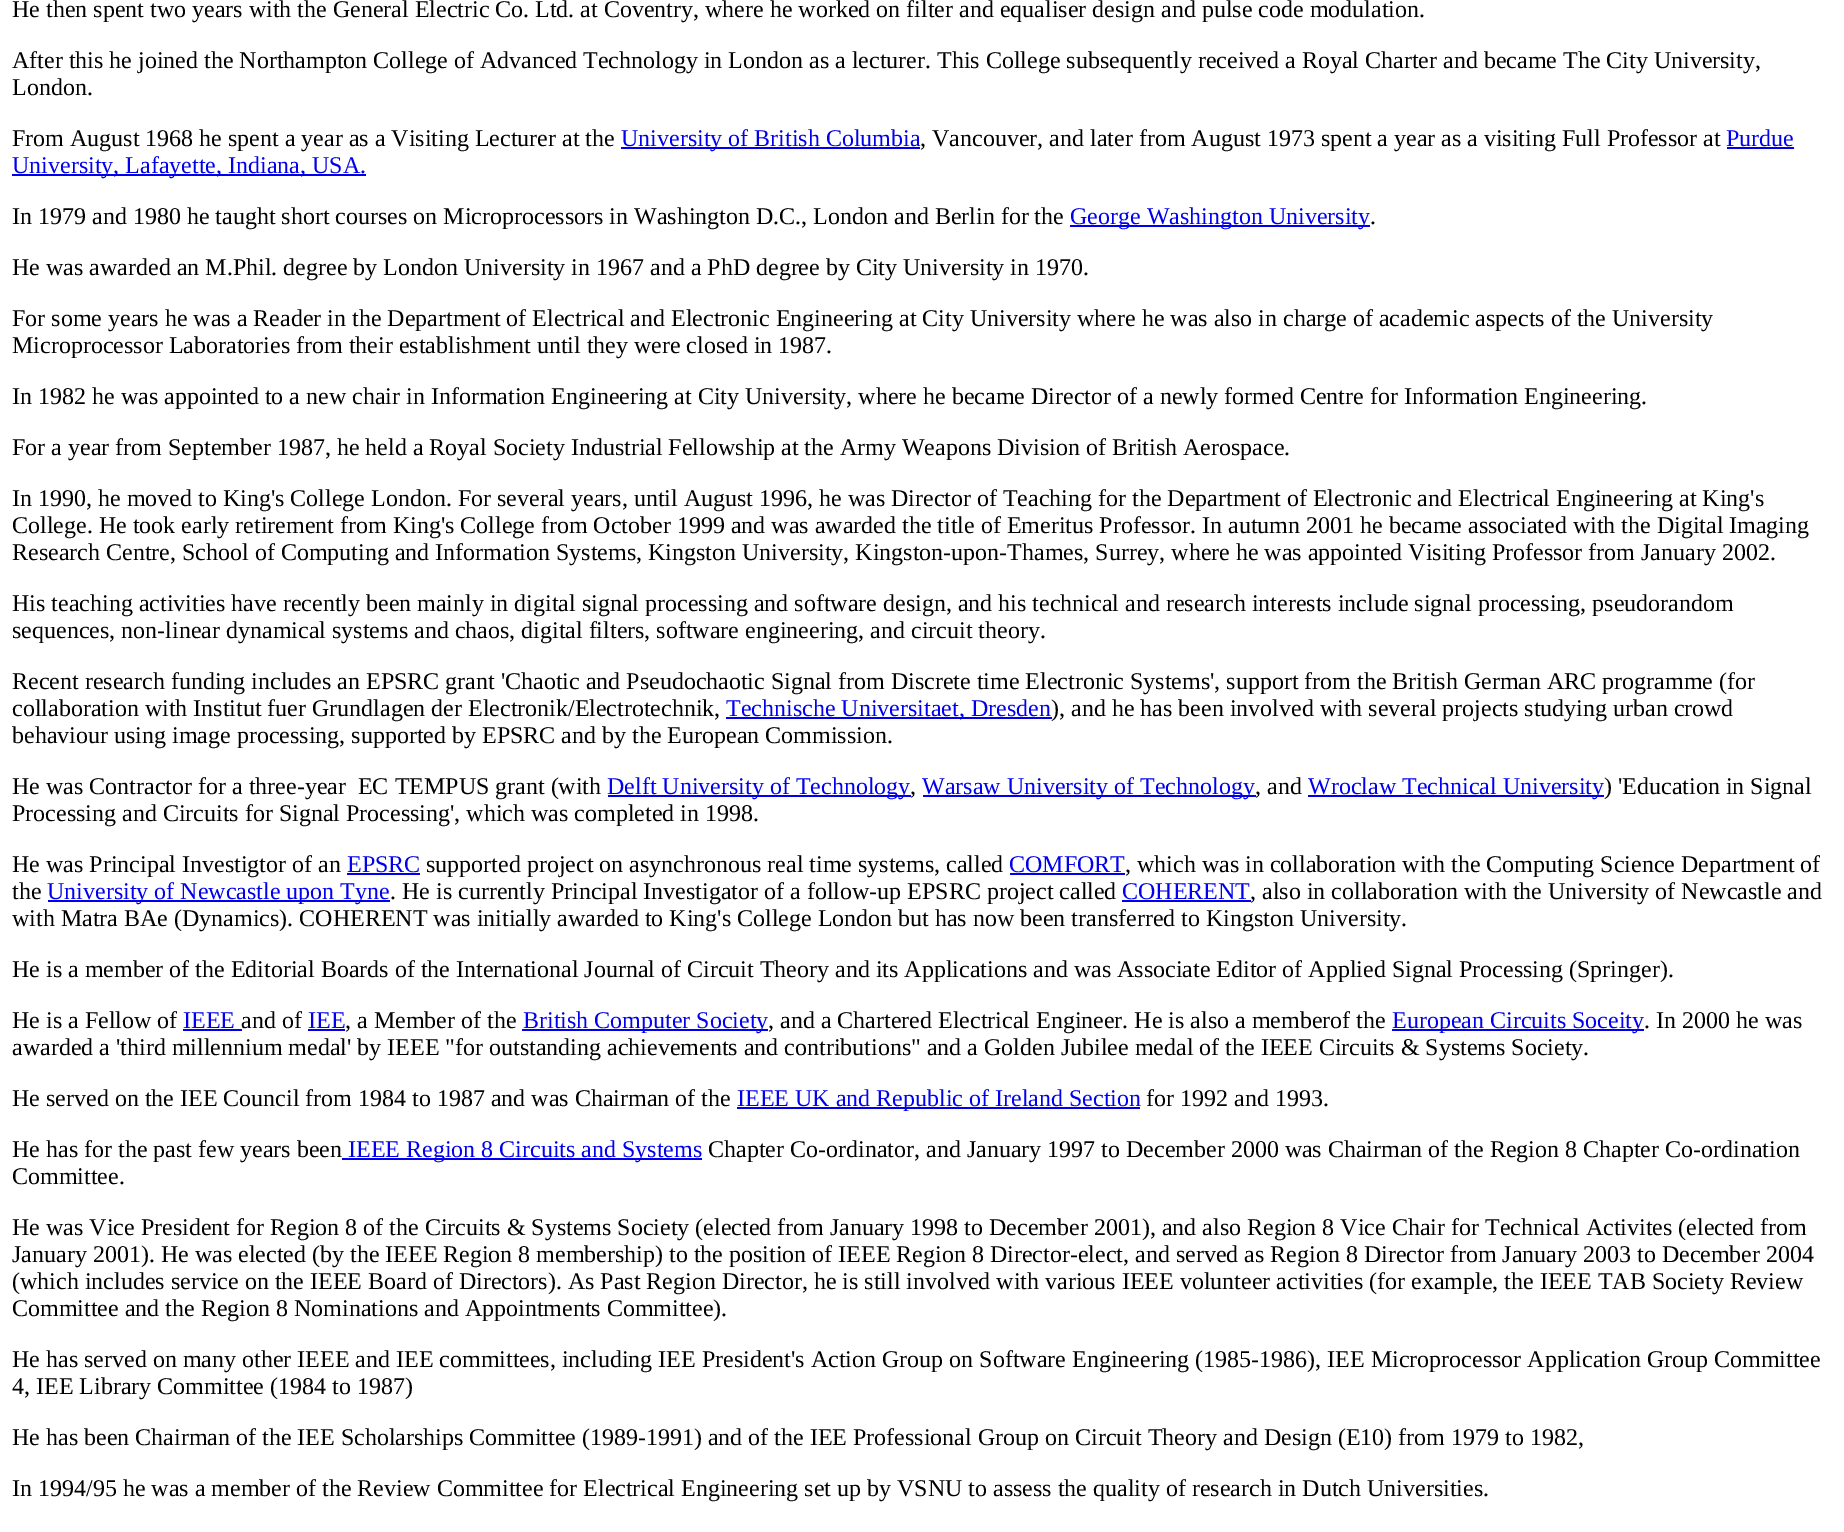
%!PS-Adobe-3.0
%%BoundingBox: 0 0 1844 1532
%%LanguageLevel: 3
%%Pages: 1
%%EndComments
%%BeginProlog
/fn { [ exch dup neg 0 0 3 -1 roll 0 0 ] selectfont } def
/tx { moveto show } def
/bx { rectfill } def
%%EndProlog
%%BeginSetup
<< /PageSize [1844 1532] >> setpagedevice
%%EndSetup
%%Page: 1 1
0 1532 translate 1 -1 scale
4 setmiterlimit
1 setgray
0 0 1844 1532 bx
/LiberationSerif-Regular 24 fn
0 setgray
(He then spent two years with the General Electric Co. Ltd. at Coventry, where he worked on filter and equaliser design and pulse code modulation.) 12 17 tx
(After this he joined the Northampton College of Advanced Technology in London as a lecturer. This College subsequently received a Royal Charter and became The City University,) 12 68 tx
(London.) 12 95 tx
(From August 1968 he spent a year as a Visiting Lecturer at the) 12 146 tx
0 0 0.933 setrgbcolor
621 147 299 2 bx
(University of British Columbia) 621 146 tx
0 setgray
(, Vancouver, and later from August 1973 spent a year as a visiting Full Professor at) 920 146 tx
0 0 0.933 setrgbcolor
(Purdue) 1726 146 tx
1727 147 67 2 bx
12 174 354 2 bx
(University, Lafayette, Indiana, USA.) 12 173 tx
0 setgray
(In 1979 and 1980 he taught short courses on Microprocessors in Washington D.C., London and Berlin for the) 12 224 tx
0 0 0.933 setrgbcolor
1070 225 300 2 bx
(George Washington University) 1070 224 tx
0 setgray
(.) 1370 224 tx
(He was awarded an M.Phil. degree by London University in 1967 and a PhD degree by City University in 1970.) 12 275 tx
(For some years he was a Reader in the Department of Electrical and Electronic Engineering at City University where he was also in charge of academic aspects of the University) 12 326 tx
(Microprocessor Laboratories from their establishment until they were closed in 1987.) 12 353 tx
(In 1982 he was appointed to a new chair in Information Engineering at City University, where he became Director of a newly formed Centre for Information Engineering.) 12 404 tx
(For a year from September 1987, he held a Royal Society Industrial Fellowship at the Army Weapons Division of British Aerospace.) 12 455 tx
(In 1990, he moved to King's College London. For several years, until August 1996, he was Director of Teaching for the Department of Electronic and Electrical Engineering at King's) 12 506 tx
(College. He took early retirement from King's College from October 1999 and was awarded the title of Emeritus Professor. In autumn 2001 he became associated with the Digital Imaging) 12 533 tx
(Research Centre, School of Computing and Information Systems, Kingston University, Kingston-upon-Thames, Surrey, where he was appointed Visiting Professor from January 2002.) 12 560 tx
(His teaching activities have recently been mainly in digital signal processing and software design, and his technical and research interests include signal processing, pseudorandom) 12 611 tx
(sequences, non-linear dynamical systems and chaos, digital filters, software engineering, and circuit theory.) 12 638 tx
(Recent research funding includes an EPSRC grant 'Chaotic and Pseudochaotic Signal from Discrete time Electronic Systems', support from the British German ARC programme \(for) 12 689 tx
(collaboration with Institut fuer Grundlagen der Electronik/Electrotechnik,) 12 716 tx
0 0 0.933 setrgbcolor
726 717 326 2 bx
(Technische Universitaet, Dresden) 726 716 tx
0 setgray
(\), and he has been involved with several projects studying urban crowd) 1051 716 tx
(behaviour using image processing, supported by EPSRC and by the European Commission.) 12 743 tx
(He was Contractor for a three-year  EC TEMPUS grant \(with) 12 794 tx
0 0 0.933 setrgbcolor
608 795 303 2 bx
(Delft University of Technology) 607 794 tx
0 setgray
(,) 910 794 tx
0 0 0.933 setrgbcolor
923 795 333 2 bx
(Warsaw University of Technology) 922 794 tx
0 setgray
(, and) 1255 794 tx
0 0 0.933 setrgbcolor
1308 795 296 2 bx
(Wroclaw Technical University) 1308 794 tx
0 setgray
(\) 'Education in Signal) 1604 794 tx
(Processing and Circuits for Signal Processing', which was completed in 1998.) 12 821 tx
(He was Principal Investigtor of an) 12 872 tx
0 0 0.933 setrgbcolor
(EPSRC) 347 872 tx
347 873 73 2 bx
0 setgray
(supported project on asynchronous real time systems, called) 426 872 tx
0 0 0.933 setrgbcolor
(COMFORT) 1009 872 tx
1010 873 115 2 bx
0 setgray
(, which was in collaboration with the Computing Science Department of) 1125 872 tx
(the) 12 899 tx
0 0 0.933 setrgbcolor
48 900 342 2 bx
(University of Newcastle upon Tyne) 47 899 tx
0 setgray
(. He is currently Principal Investigator of a follow-up EPSRC project called) 390 899 tx
0 0 0.933 setrgbcolor
(COHERENT) 1122 899 tx
1122 900 129 2 bx
0 setgray
(, also in collaboration with the University of Newcastle and) 1250 899 tx
(with Matra BAe \(Dynamics\). COHERENT was initially awarded to King's College London but has now been transferred to Kingston University.) 12 926 tx
(He is a member of the Editorial Boards of the International Journal of Circuit Theory and its Applications and was Associate Editor of Applied Signal Processing \(Springer\).) 12 977 tx
(He is a Fellow of) 12 1028 tx
0 0 0.933 setrgbcolor
(IEEE) 183 1028 tx
183 1029 59 2 bx
0 setgray
(and of) 241 1028 tx
0 0 0.933 setrgbcolor
(IEE) 308 1028 tx
308 1029 37 2 bx
0 setgray
(, a Member of the) 345 1028 tx
0 0 0.933 setrgbcolor
522 1029 246 2 bx
(British Computer Society) 523 1028 tx
0 setgray
(, and a Chartered Electrical Engineer. He is also a memberof the) 768 1028 tx
0 0 0.933 setrgbcolor
1392 1029 252 2 bx
(European Circuits Soceity) 1392 1028 tx
0 setgray
(. In 2000 he was) 1644 1028 tx
(awarded a 'third millennium medal' by IEEE "for outstanding achievements and contributions" and a Golden Jubilee medal of the IEEE Circuits & Systems Society.) 12 1055 tx
(He served on the IEE Council from 1984 to 1987 and was Chairman of the) 12 1106 tx
0 0 0.933 setrgbcolor
737 1107 403 2 bx
(IEEE UK and Republic of Ireland Section) 737 1106 tx
0 setgray
(for 1992 and 1993.) 1146 1106 tx
(He has for the past few years been) 12 1157 tx
0 0 0.933 setrgbcolor
342 1158 360 2 bx
(IEEE Region 8 Circuits and Systems) 348 1157 tx
0 setgray
(Chapter Co-ordinator, and January 1997 to December 2000 was Chairman of the Region 8 Chapter Co-ordination) 708 1157 tx
(Committee.) 12 1184 tx
(He was Vice President for Region 8 of the Circuits & Systems Society \(elected from January 1998 to December 2001\), and also Region 8 Vice Chair for Technical Activites \(elected from) 12 1235 tx
(January 2001\). He was elected \(by the IEEE Region 8 membership\) to the position of IEEE Region 8 Director-elect, and served as Region 8 Director from January 2003 to December 2004) 12 1262 tx
(\(which includes service on the IEEE Board of Directors\). As Past Region Director, he is still involved with various IEEE volunteer activities \(for example, the IEEE TAB Society Review) 12 1289 tx
(Committee and the Region 8 Nominations and Appointments Committee\).) 12 1316 tx
(He has served on many other IEEE and IEE committees, including IEE President's Action Group on Software Engineering \(1985-1986\), IEE Microprocessor Application Group Committee) 12 1367 tx
(4, IEE Library Committee \(1984 to 1987\)) 12 1394 tx
(He has been Chairman of the IEE Scholarships Committee \(1989-1991\) and of the IEE Professional Group on Circuit Theory and Design \(E10\) from 1979 to 1982,) 12 1445 tx
(In 1994/95 he was a member of the Review Committee for Electrical Engineering set up by VSNU to assess the quality of research in Dutch Universities.) 12 1496 tx
showpage
%%EOF
